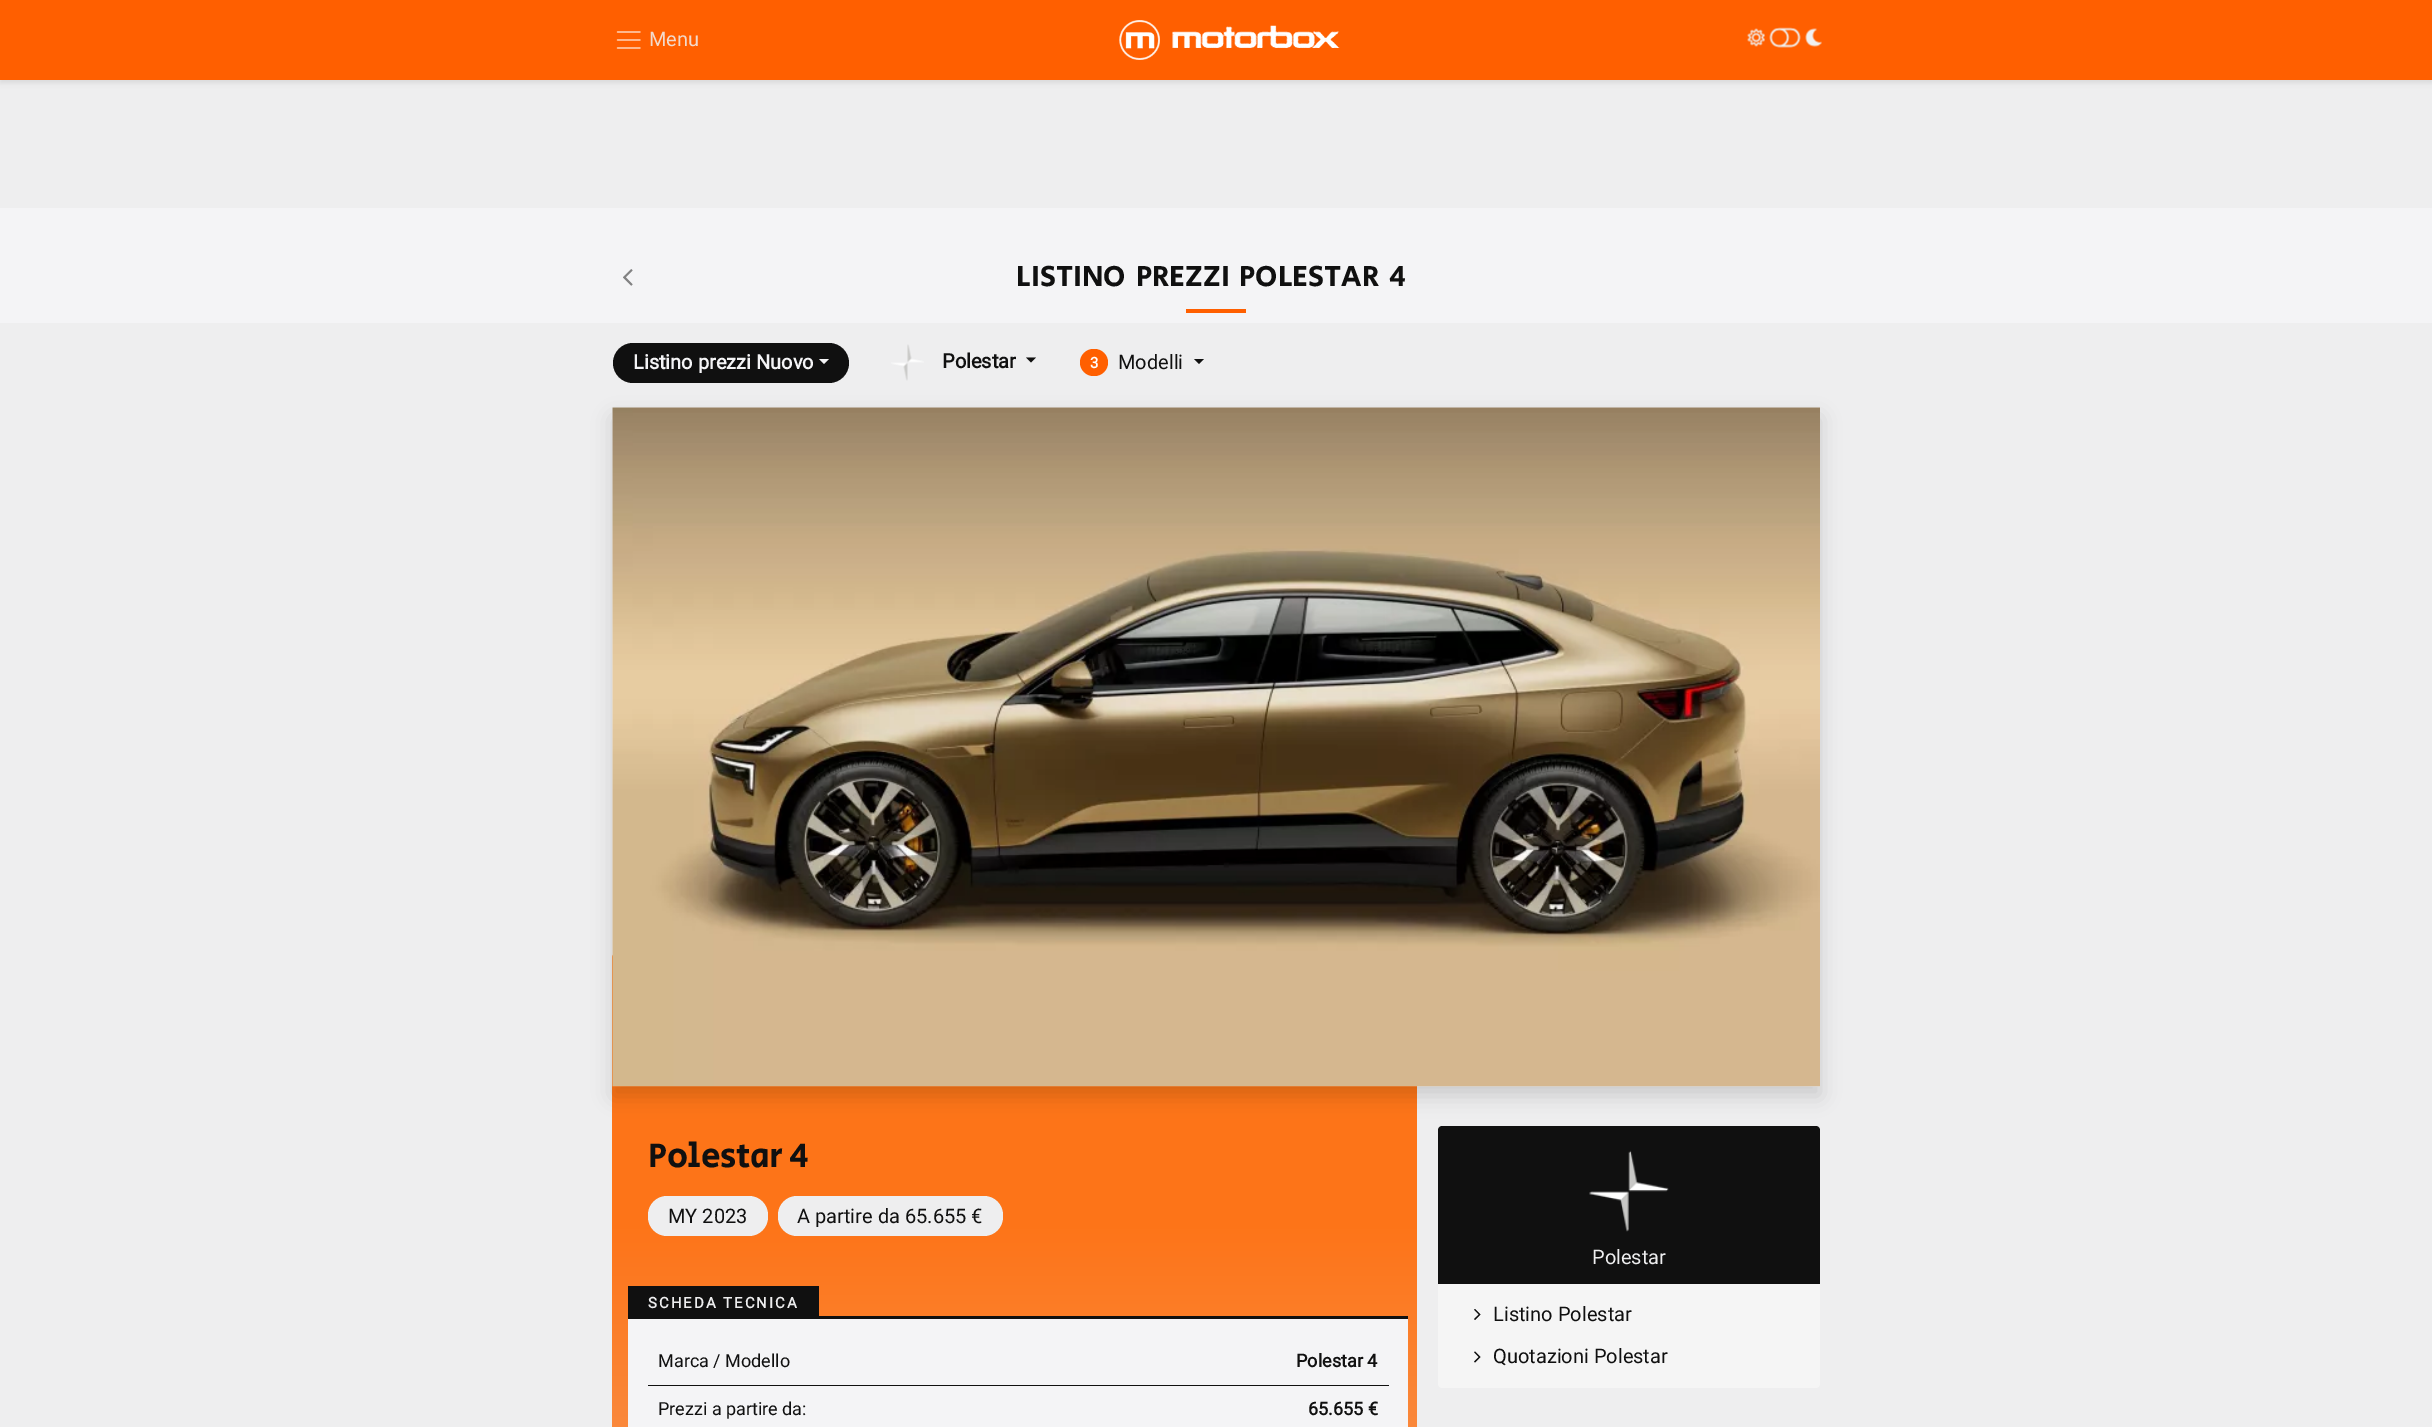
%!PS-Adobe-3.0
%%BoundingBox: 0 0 2432 1427
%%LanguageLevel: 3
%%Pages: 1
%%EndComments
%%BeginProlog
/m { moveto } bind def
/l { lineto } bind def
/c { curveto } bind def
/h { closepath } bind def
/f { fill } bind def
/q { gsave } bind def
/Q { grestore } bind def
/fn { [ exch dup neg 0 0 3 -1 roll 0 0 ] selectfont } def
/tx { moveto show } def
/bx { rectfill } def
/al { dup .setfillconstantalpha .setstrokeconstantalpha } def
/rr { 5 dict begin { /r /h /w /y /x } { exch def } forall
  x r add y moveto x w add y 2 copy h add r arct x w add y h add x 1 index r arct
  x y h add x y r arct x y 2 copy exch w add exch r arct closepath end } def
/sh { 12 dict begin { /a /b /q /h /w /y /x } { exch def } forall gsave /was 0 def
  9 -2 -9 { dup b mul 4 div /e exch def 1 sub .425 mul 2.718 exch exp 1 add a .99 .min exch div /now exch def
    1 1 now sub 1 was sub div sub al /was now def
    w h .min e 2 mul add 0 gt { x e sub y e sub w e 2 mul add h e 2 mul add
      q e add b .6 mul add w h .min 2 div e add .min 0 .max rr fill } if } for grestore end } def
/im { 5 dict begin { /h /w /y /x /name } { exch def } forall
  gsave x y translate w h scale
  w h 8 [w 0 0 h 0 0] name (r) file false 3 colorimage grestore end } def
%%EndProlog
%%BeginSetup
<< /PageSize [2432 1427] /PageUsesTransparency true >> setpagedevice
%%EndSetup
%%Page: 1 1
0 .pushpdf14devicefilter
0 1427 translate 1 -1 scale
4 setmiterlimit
0.933 0.933 0.937 setrgbcolor
0 0 2432 1427 bx
0 setgray
0 3 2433 80 0 2.5 0.07 sh
1 0.373 0 setrgbcolor
0 0 2432 80 bx
(image0.raw) 616 31 25 18 im
/Roboto-Regular 20 fn
0.949 0.855 0.8 setrgbcolor
(Menu) 649 46 tx
(image1.raw) 1119 20 221 40 im
(image2.raw) 1747 28 18 19 im
(image3.raw) 1769 27 32 21 im
(image4.raw) 1805 28 17 19 im
0.957 0.957 0.965 setrgbcolor
0 208 2432 115 bx
(image5.raw) 623 269 10 17 im
/SecularOne-Regular 30 fn
0.063 setgray
(LISTINO) 1016 286 tx
(PREZZI) 1136 286 tx
(POLESTAR) 1239 286 tx
(4) 1389 286 tx
1 0.373 0 setrgbcolor
1186 309 60 4 bx
0.063 setgray
613 343 236 40 20 rr f
/Roboto-Bold 20 fn
0.957 0.957 0.965 setrgbcolor
(Listino prezzi Nuovo) 633 369 tx
819 359 m 829 359 l 824 364 l h f
(image6.raw) 891 344 33 37 im
0.063 setgray
(Polestar) 942 368 tx
1026 357.5 m 1036 357.5 l 1031 362.5 l h f
1 0.373 0 setrgbcolor
1080 349 28 27 13.5 rr f
/Roboto-Bold 15 fn
1 setgray
(3) 1090 368 tx
/Roboto-Regular 20 fn
0.063 setgray
(Modelli) 1118 369 tx
1194 359 m 1204 359 l 1199 364 l h f
q 616 953 m 1413 995 l 1415 995 1417 997 1417 999 c 1417 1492 l 1417 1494 1415 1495 1413 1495 c 616 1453 l 614 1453 612 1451 612 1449 c 612 957 l 612 955 614 953 616 953 c h clip newpath
<< /ShadingType 2 /ColorSpace /DeviceRGB /Coords [1015 974 1015 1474] /Extend [true true] /Function << /FunctionType 3 /Domain [0 1] /Functions [<< /FunctionType 2 /Domain [0 1] /C0 [0.992 0.455 0.094] /C1 [0.992 0.455 0.094] /N 1 >> << /FunctionType 2 /Domain [0 1] /C0 [0.992 0.455 0.094] /C1 [0.98 0.553 0.263] /N 1 >>] /Bounds [0.5] /Encode [0 1 0 1] >> >> shfill Q
0 setgray
613 418 1207 678 0 10 0.15 sh
(image7.raw) 612 407 1208 680 im
/SecularOne-Regular 35 fn
0.063 setgray
648 1167 m -0.5 0 (Polestar 4) ashow
0.933 0.933 0.937 setrgbcolor
648 1196 120 40 19 rr f
/Roboto-Regular 20 fn
0.063 setgray
(MY 2023) 668 1223 tx
0.933 0.933 0.937 setrgbcolor
778 1196 225 40 19 rr f
0.063 setgray
(A partire da 65.655 €) 797 1223 tx
628 1286 191 30 bx
/Roboto-Bold 15 fn
0.933 0.933 0.937 setrgbcolor
648 1308 m 2 0 (SCHEDA TECNICA) ashow
0.063 setgray
628 1316 780 3 bx
0.957 0.957 0.965 setrgbcolor
628 1319 780 108 bx
/Roboto-Regular 18 fn
0.063 setgray
(Marca / Modello) 658 1367 tx
648 1385 741 1 bx
/Roboto-Bold 18 fn
(Polestar 4) 1296 1367 tx
/Roboto-Regular 18 fn
(Prezzi a partire da:) 658 1415 tx
/Roboto-Bold 18 fn
(65.655 €) 1308 1415 tx
1442 1126 m 1816 1126 l 1818 1126 1820 1128 1820 1130 c 1820 1284 l 1438 1284 l 1438 1130 l 1438 1128 1440 1126 1442 1126 c h f
(image8.raw) 1589 1150 80 82 im
/Roboto-Regular 20 fn
0.933 0.933 0.937 setrgbcolor
(Polestar) 1592 1264 tx
0.961 setgray
1438 1284 m 1820 1284 l 1820 1384 l 1820 1386 1818 1388 1816 1388 c 1442 1388 l 1440 1388 1438 1386 1438 1384 c h f
(image9.raw) 1474 1309 7 11 im
0.063 setgray
(Listino Polestar) 1493 1321 tx
(image10.raw) 1474 1351 7 12 im
(Quotazioni Polestar) 1493 1363 tx
.poppdf14devicefilter showpage
%%EOF
